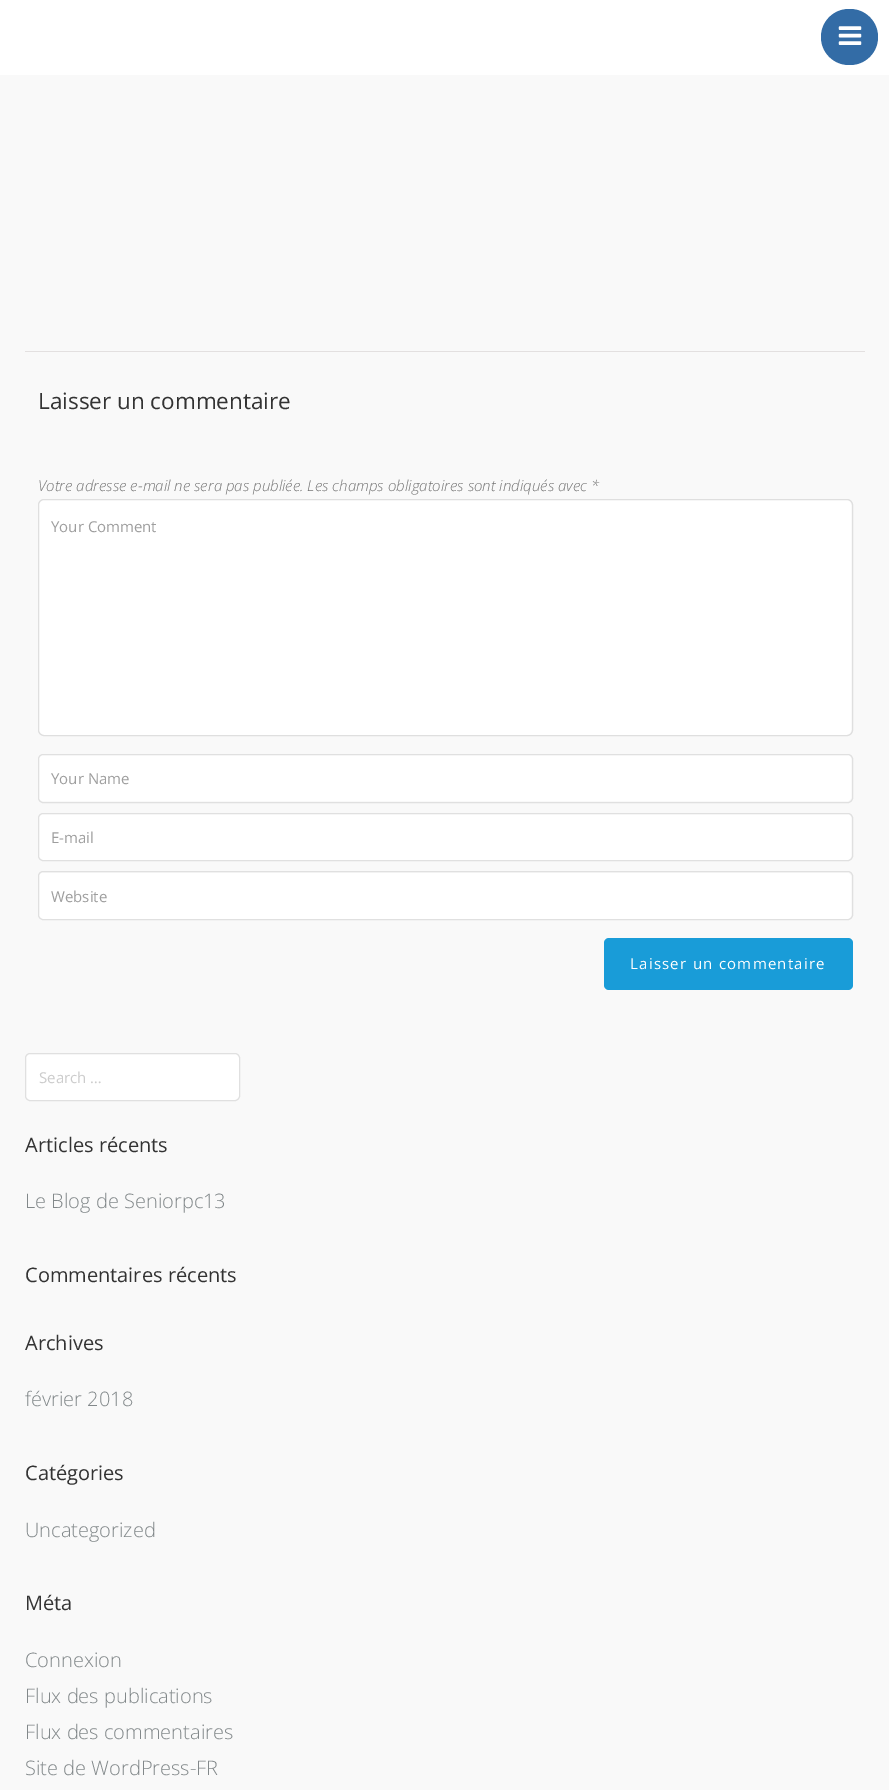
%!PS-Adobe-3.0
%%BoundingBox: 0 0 889 1790
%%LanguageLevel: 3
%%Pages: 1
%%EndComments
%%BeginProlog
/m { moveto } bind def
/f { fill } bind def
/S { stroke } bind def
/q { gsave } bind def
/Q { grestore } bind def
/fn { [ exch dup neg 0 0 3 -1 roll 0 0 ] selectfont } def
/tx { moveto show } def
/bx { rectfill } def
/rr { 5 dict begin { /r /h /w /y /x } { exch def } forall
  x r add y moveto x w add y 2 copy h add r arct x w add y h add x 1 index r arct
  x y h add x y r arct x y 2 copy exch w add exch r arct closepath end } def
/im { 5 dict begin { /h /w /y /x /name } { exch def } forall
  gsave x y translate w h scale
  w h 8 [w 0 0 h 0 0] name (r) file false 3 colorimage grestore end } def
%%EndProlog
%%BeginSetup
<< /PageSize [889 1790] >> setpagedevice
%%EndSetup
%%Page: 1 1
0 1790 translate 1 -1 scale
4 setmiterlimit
0.976 setgray
0 0 889 1790 bx
1 setgray
0 0 889 75 bx
0.2 0.424 0.651 setrgbcolor
821 9 57 56 28 rr f
(image0.raw) 838 26 24 19 im
0.89 0.878 0.878 setrgbcolor
25 351 840 1 bx
/OpenSans-Regular 22.5 fn
0.2 setgray
(Laisser un commentaire) 38 409 tx
/OpenSans-LightItalic 15 fn
0.459 setgray
(Votre adresse e-mail ne sera pas publiée. Les champs obligatoires sont indiqués avec *) 38 491 tx
1 setgray
39 500 812 235 5 rr f
0.875 setgray
38.5 499.5 814 236 5.5 rr S
/OpenSans-Regular 15 fn
0.62 setgray
(Your Comment) 51 532 tx
1 setgray
39 755 812 46 4 rr f
0.878 setgray
38.5 754.5 814 48 4.5 rr S
0.62 setgray
(Your Name) 51 784 tx
1 setgray
39 814 812 46 4 rr f
0.878 setgray
38.5 813.5 814 47 4.5 rr S
0.62 setgray
(E-mail) 51 843 tx
1 setgray
39 873 812 46 4 rr f
0.878 setgray
38.5 871.5 814 48 4.5 rr S
0.62 setgray
(Website) 51 902 tx
0.098 0.612 0.847 setrgbcolor
604 938 249 52 5 rr f
1 setgray
630 969 m 1.25 0 (Laisser un commentaire) ashow
25.5 1053.5 214 47 4.5 rr q f Q
0.878 setgray
S
0.8 setgray
(Search …) 39 1083 tx
/OpenSans-Regular 20 fn
0.2 setgray
(Articles récents) 25 1152 tx
/OpenSans-Light 20 fn
0.51 0.533 0.541 setrgbcolor
(Le Blog de Seniorpc13) 25 1208 tx
/OpenSans-Regular 20 fn
0.2 setgray
(Commentaires récents) 25 1282 tx
(Archives) 25 1350 tx
/OpenSans-Light 20 fn
0.51 0.533 0.541 setrgbcolor
(février 2018) 25 1406 tx
/OpenSans-Regular 20 fn
0.2 setgray
(Catégories) 25 1480 tx
/OpenSans-Light 20 fn
0.51 0.533 0.541 setrgbcolor
(Uncategorized) 25 1537 tx
/OpenSans-Regular 20 fn
0.2 setgray
(Méta) 25 1610 tx
/OpenSans-Light 20 fn
0.51 0.533 0.541 setrgbcolor
(Connexion) 25 1667 tx
(Flux des publications) 25 1703 tx
(Flux des commentaires) 25 1739 tx
(Site de WordPress-FR) 25 1775 tx
showpage
%%EOF
